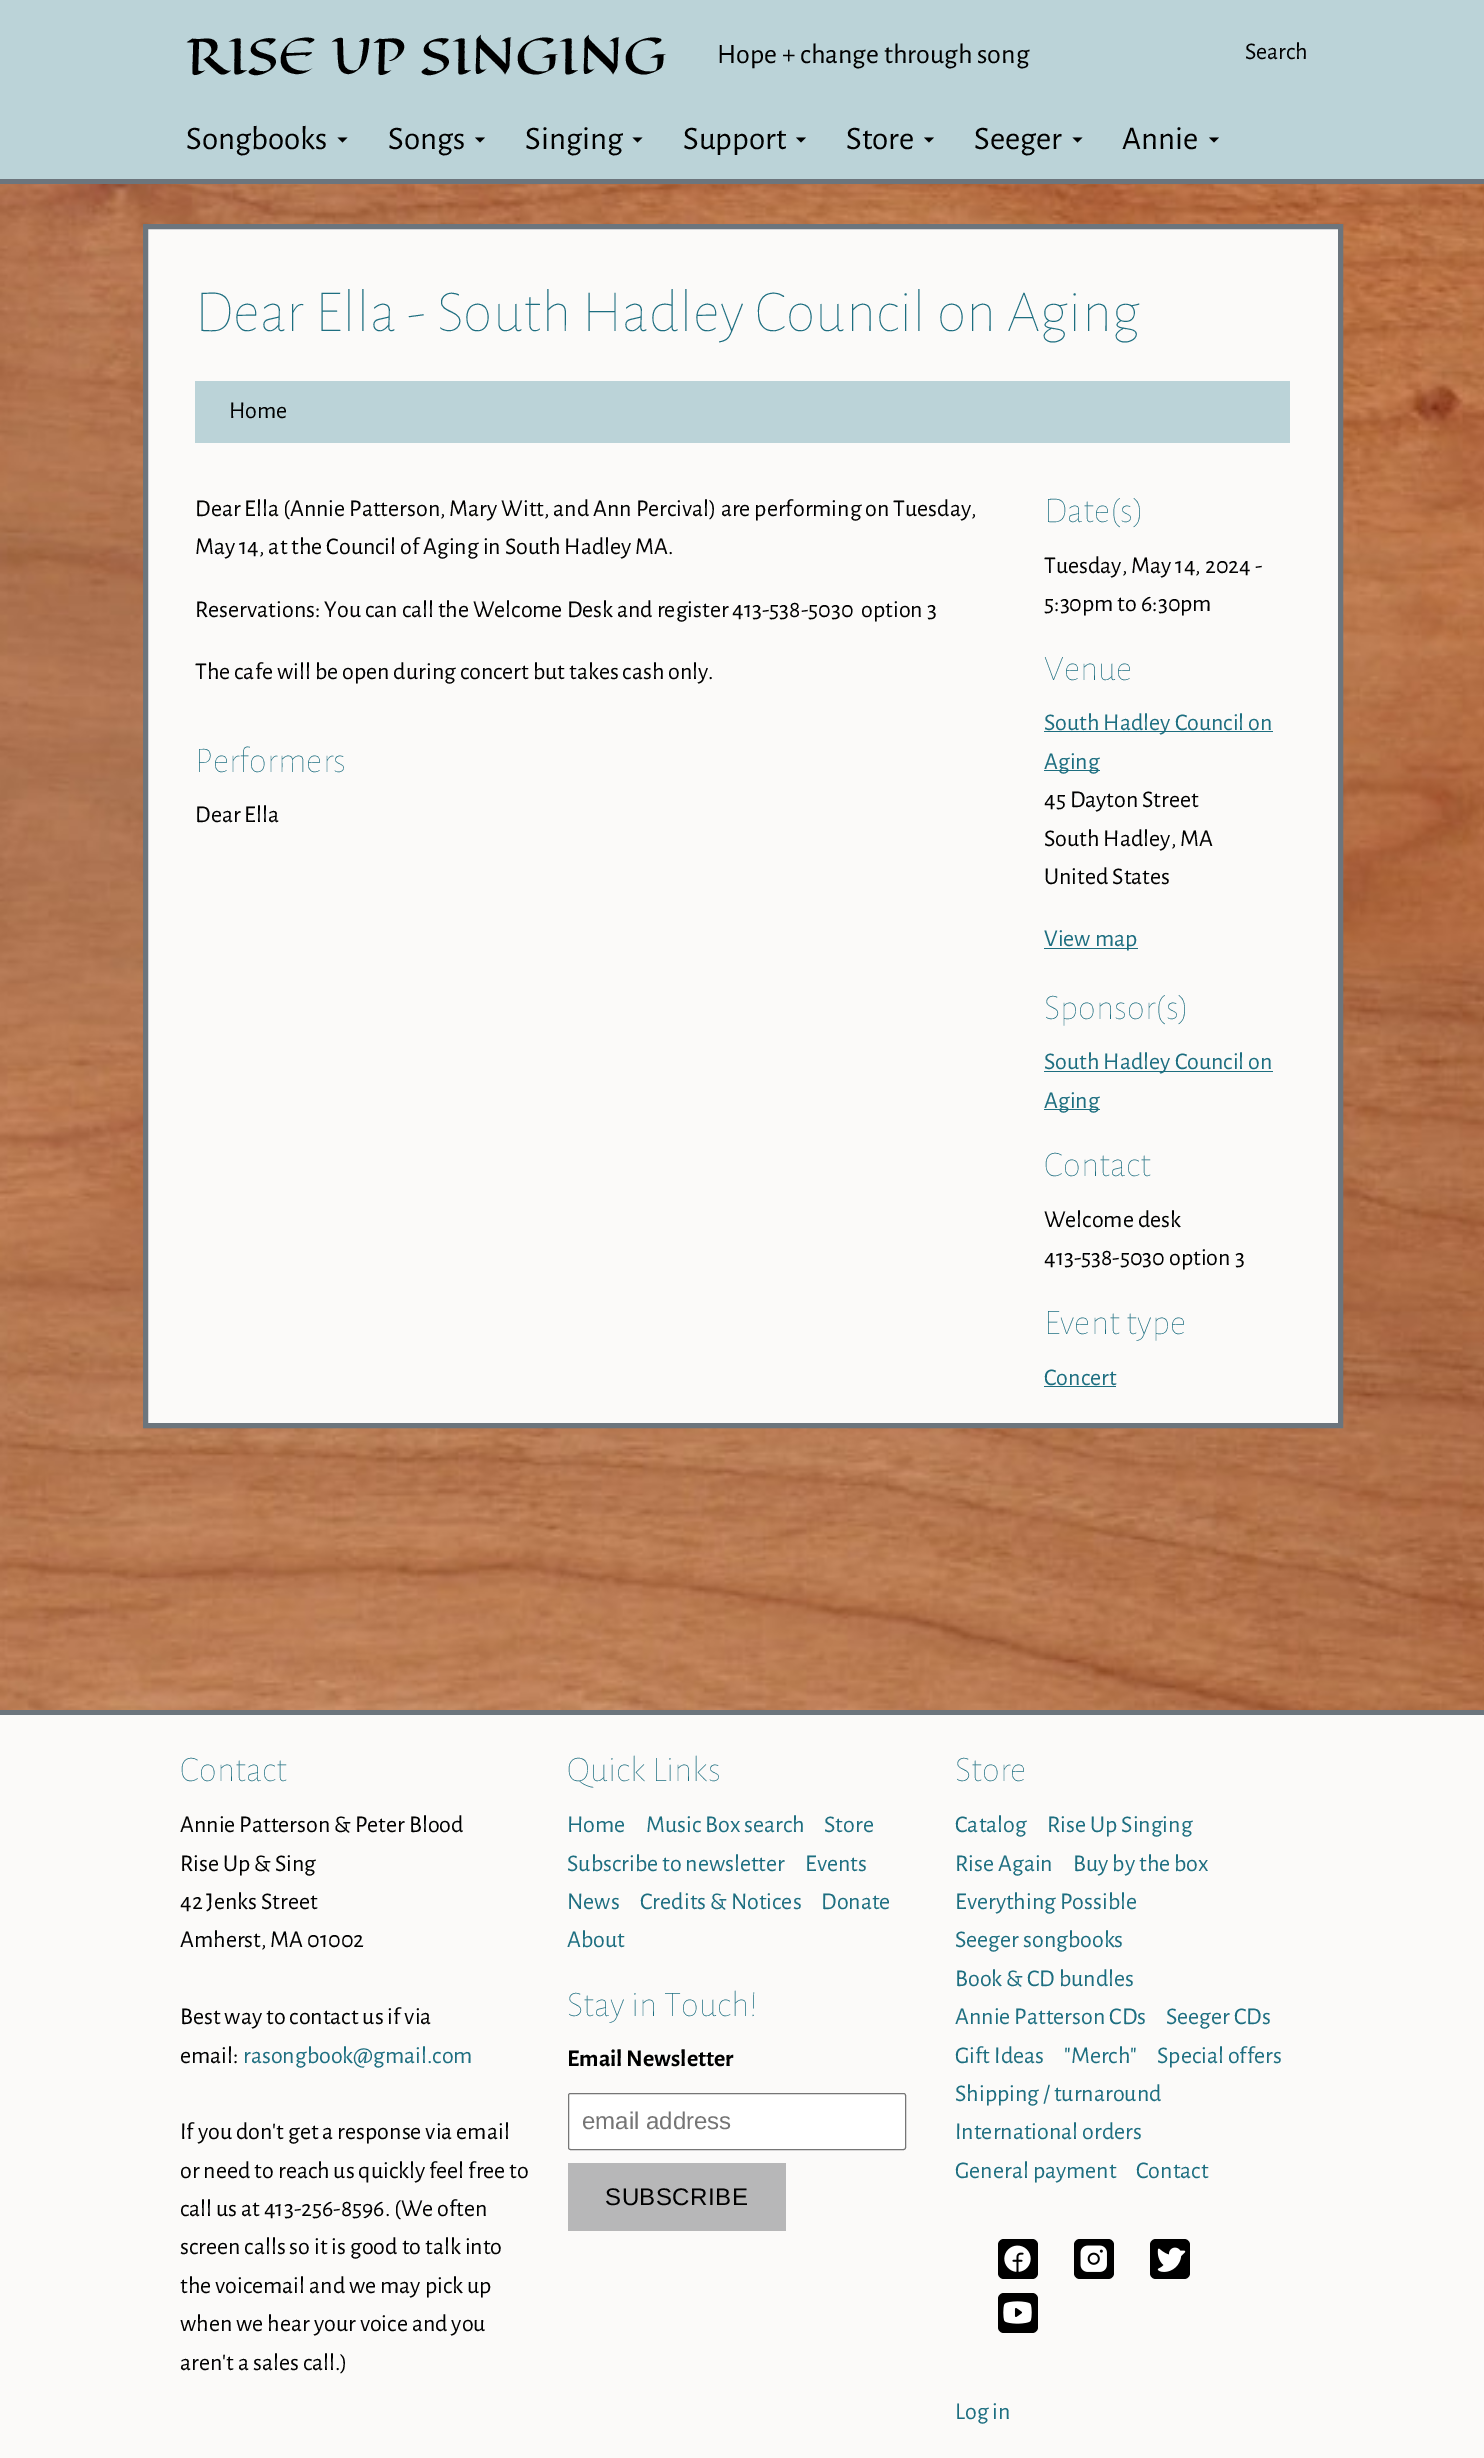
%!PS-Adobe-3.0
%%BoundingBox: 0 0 1484 2458
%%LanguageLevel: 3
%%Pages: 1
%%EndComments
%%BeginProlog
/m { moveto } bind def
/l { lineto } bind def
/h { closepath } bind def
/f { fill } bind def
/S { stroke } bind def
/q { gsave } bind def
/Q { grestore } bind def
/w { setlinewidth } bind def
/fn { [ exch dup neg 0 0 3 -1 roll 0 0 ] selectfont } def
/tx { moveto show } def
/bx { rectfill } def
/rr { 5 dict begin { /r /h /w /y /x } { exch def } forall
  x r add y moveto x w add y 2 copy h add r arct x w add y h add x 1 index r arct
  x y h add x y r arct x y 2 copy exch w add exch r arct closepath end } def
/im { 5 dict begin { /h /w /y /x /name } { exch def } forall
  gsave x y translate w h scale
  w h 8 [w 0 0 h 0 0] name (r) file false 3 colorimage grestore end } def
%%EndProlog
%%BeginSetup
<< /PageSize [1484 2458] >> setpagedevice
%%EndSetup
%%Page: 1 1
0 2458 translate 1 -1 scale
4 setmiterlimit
1 setgray
0 0 1484 2458 bx
(image0.raw) 0 184 1484 1526 im
0.733 0.827 0.847 setrgbcolor
0 0 1484 179 bx
0.424 0.459 0.49 setrgbcolor
0 179 1484 5 bx
/EagleLake-Regular 48 fn
0 setgray
(RISE UP SINGING) 186 73 tx
/AlegreyaSans-Regular 28 fn
(Hope + change through song) 717 63 tx
/AlegreyaSans-Regular 24 fn
(Search) 1245 59 tx
/AlegreyaSans-Regular 33 fn
(Songbooks) 186 149 tx
337.5 137.5 m 347.5 137.5 l 342.5 142.5 l h f
(Songs) 388 149 tx
475 137.5 m 485 137.5 l 480 142.5 l h f
(Singing) 525 149 tx
632.5 137.5 m 642.5 137.5 l 637.5 142.5 l h f
(Support) 683 149 tx
796 137.5 m 806 137.5 l 801 142.5 l h f
(Store) 846 149 tx
924 137.5 m 934 137.5 l 929 142.5 l h f
(Seeger) 974 149 tx
1072.5 137.5 m 1082.5 137.5 l 1077.5 142.5 l h f
(Annie) 1122 149 tx
1209 137.5 m 1219 137.5 l 1214 142.5 l h f
0.984 0.98 0.976 setrgbcolor
145.5 226.5 m 1340.5 226.5 l 1340.5 1425.5 l 145.5 1425.5 l h q f Q
0.424 0.459 0.49 setrgbcolor
5 w
S
/AlegreyaSans-ExtraLight 60 fn
0.114 0.431 0.502 setrgbcolor
(Dear Ella - South Hadley Council on Aging) 195 331 tx
0.733 0.827 0.847 setrgbcolor
195 381 1095 62 bx
/AlegreyaSans-Regular 24 fn
0 setgray
(Home) 229 418 tx
(Dear Ella \(Annie Patterson, Mary Witt, and Ann Percival\) are performing on Tuesday,) 195 516 tx
(May 14, at the Council of Aging in South Hadley MA.) 195 554 tx
(Reservations: You can call the Welcome Desk and register 413-538-5030  option 3) 195 617 tx
(The cafe will be open during concert but takes cash only.) 195 679 tx
/AlegreyaSans-ExtraLight 36.25 fn
0.114 0.431 0.502 setrgbcolor
(Performers) 195 772 tx
/AlegreyaSans-Regular 24 fn
0 setgray
(Dear Ella) 195 822 tx
/AlegreyaSans-ExtraLight 36.25 fn
0.114 0.431 0.502 setrgbcolor
(Date\(s\)) 1044 522 tx
/AlegreyaSans-Regular 24 fn
0 setgray
(Tuesday, May 14, 2024 -) 1044 573 tx
(5:30pm to 6:30pm) 1044 611 tx
/AlegreyaSans-ExtraLight 36.25 fn
0.114 0.431 0.502 setrgbcolor
(Venue) 1044 680 tx
1044 731 229 1 bx
/AlegreyaSans-Regular 24 fn
(South Hadley Council on) 1044 730 tx
1044 770 56 1 bx
(Aging) 1044 769 tx
0 setgray
(45 Dayton Street) 1044 807 tx
(South Hadley, MA) 1044 846 tx
(United States) 1044 884 tx
0.114 0.431 0.502 setrgbcolor
1044 948 94 1 bx
(View map) 1044 946 tx
/AlegreyaSans-ExtraLight 36.25 fn
(Sponsor\(s\)) 1044 1019 tx
1044 1071 229 1 bx
/AlegreyaSans-Regular 24 fn
(South Hadley Council on) 1044 1069 tx
1044 1109 56 1 bx
(Aging) 1044 1108 tx
/AlegreyaSans-ExtraLight 36.25 fn
(Contact) 1044 1176 tx
/AlegreyaSans-Regular 24 fn
0 setgray
(Welcome desk) 1044 1227 tx
(413-538-5030 option 3) 1044 1265 tx
/AlegreyaSans-ExtraLight 36.25 fn
0.114 0.431 0.502 setrgbcolor
(Event type) 1044 1334 tx
/AlegreyaSans-Regular 24 fn
(Concert) 1044 1385 tx
1044 1386 72 1 bx
0.984 0.98 0.976 setrgbcolor
0 1715 1484 743 bx
0.424 0.459 0.49 setrgbcolor
0 1710 1484 5 bx
/AlegreyaSans-ExtraLight 36.25 fn
0.114 0.431 0.502 setrgbcolor
(Contact) 180 1781 tx
/AlegreyaSans-Regular 24 fn
0 setgray
(Annie Patterson & Peter Blood) 180 1832 tx
(Rise Up & Sing) 180 1871 tx
(42 Jenks Street) 180 1909 tx
(Amherst, MA 01002) 180 1947 tx
(Best way to contact us if via) 180 2024 tx
(email:) 180 2063 tx
0.114 0.431 0.502 setrgbcolor
(rasongbook@gmail.com) 243 2063 tx
0 setgray
(If you don't get a response via email) 180 2139 tx
(or need to reach us quickly feel free to) 180 2178 tx
(call us at 413-256-8596. \(We often) 180 2216 tx
(screen calls so it is good to talk into) 180 2254 tx
(the voicemail and we may pick up) 180 2293 tx
(when we hear your voice and you) 180 2331 tx
(aren't a sales call.\)) 180 2370 tx
/AlegreyaSans-ExtraLight 36.25 fn
0.114 0.431 0.502 setrgbcolor
(Quick Links) 567 1781 tx
/AlegreyaSans-Regular 24 fn
(Home) 567 1832 tx
(Music Box search) 646 1832 tx
(Store) 824 1832 tx
(Subscribe to newsletter) 567 1871 tx
(Events) 805 1871 tx
(News) 567 1909 tx
(Credits & Notices) 640 1909 tx
(Donate) 821 1909 tx
(About) 567 1947 tx
/AlegreyaSans-ExtraLight 36.25 fn
(Stay in Touch!) 567 2016 tx
/AlegreyaSans-Bold 24 fn
0 setgray
(Email Newsletter) 567 2066 tx
1 setgray
568.5 2093.5 337 56 2 rr q f Q
0.463 setgray
1 w
S
/LiberationSans-Regular 24 fn
0.459 setgray
(email address) 582 2129 tx
0.718 0.718 0.722 setrgbcolor
568 2163 218 68 bx
0 setgray
605 2205 m 0.5 0 (SUBSCRIBE) ashow
/AlegreyaSans-ExtraLight 36.25 fn
0.114 0.431 0.502 setrgbcolor
(Store) 955 1781 tx
/AlegreyaSans-Regular 24 fn
(Catalog) 955 1832 tx
(Rise Up Singing) 1047 1832 tx
(Rise Again) 955 1871 tx
(Buy by the box) 1073 1871 tx
(Everything Possible) 955 1909 tx
(Seeger songbooks) 955 1947 tx
(Book & CD bundles) 955 1986 tx
(Annie Patterson CDs) 955 2024 tx
(Seeger CDs) 1166 2024 tx
(Gift Ideas) 955 2063 tx
("Merch") 1064 2063 tx
(Special offers) 1157 2063 tx
(Shipping / turnaround) 955 2101 tx
(International orders) 955 2139 tx
(General payment) 955 2178 tx
(Contact) 1136 2178 tx
0 setgray
998 2239 40 40 6 rr f
1074 2239 40 40 6 rr f
1150 2239 40 40 6 rr f
(image1.raw) 1004 2245 27 27 im
(image2.raw) 1080 2245 27 27 im
(image3.raw) 1157 2247 29 25 im
998 2293 40 40 6 rr f
(image4.raw) 1003 2301 29 23 im
0.114 0.431 0.502 setrgbcolor
(Log in) 955 2419 tx
showpage
%%EOF
